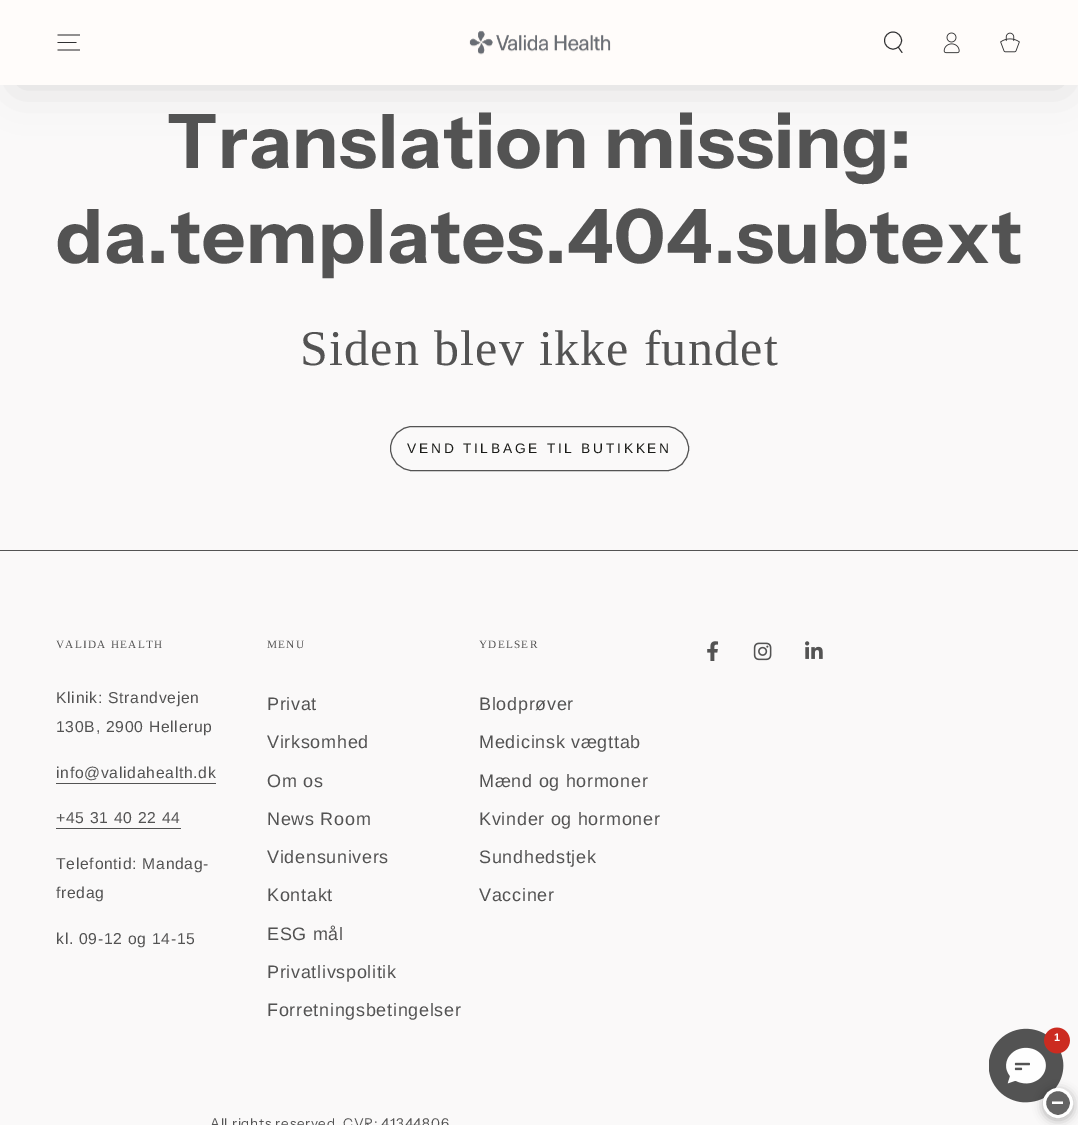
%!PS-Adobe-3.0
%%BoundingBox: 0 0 1078 1125
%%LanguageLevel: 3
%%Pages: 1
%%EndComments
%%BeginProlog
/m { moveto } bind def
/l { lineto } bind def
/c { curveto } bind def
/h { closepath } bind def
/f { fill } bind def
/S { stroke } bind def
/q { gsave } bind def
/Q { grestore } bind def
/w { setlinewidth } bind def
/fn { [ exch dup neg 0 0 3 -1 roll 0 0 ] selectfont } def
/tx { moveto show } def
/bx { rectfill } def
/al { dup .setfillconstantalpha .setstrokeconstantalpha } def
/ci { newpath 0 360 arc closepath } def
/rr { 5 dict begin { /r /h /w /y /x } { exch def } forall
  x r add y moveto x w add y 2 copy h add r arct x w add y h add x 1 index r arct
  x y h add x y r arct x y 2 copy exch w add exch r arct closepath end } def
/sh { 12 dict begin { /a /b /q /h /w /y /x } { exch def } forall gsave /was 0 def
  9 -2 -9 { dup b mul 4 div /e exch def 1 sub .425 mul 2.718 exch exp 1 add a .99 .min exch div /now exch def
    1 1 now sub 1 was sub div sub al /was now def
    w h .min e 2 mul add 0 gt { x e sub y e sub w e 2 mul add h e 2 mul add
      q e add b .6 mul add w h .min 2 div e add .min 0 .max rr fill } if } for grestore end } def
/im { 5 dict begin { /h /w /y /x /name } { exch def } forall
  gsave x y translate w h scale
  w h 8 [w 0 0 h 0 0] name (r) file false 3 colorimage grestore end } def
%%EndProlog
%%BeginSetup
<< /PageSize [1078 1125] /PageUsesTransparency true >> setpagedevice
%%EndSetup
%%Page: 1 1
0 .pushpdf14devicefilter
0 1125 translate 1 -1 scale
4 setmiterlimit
0.98 0.976 0.976 setrgbcolor
0 0 1078 1125 bx
0.325 setgray
18 63 1045 22 11 22.5 0.2 sh
1 0.988 0.98 setrgbcolor
0 0 1078 85 bx
0.188 0.188 0.192 setrgbcolor
0.7 w
57.5 50 m 80 50 l 57.5 42.5 m 76.5 42.5 l 57.5 35 m 80 35 l S
(image0.raw) 469 30 142 25 im
0.9 w
893 40.5 8.5 ci S
1 setlinecap
898.5 47.5 m 902 52.5 l S
(image1.raw) 943 32 17 22 im
(image2.raw) 1000 32 20 21 im
/InstrumentSans-Bold 75 fn
0.325 setgray
167 168 m 0.75 0 (Translation missing:) ashow
56 263 m 0.75 0 (da.templates.404.subtext) ashow
/LiberationSerif-Regular 50 fn
300 365 m 1.25 0 (Siden blev ikke fundet) ashow
1 w
0 setlinecap
390.5 426.5 298 44 22 rr S
/LiberationSans-Regular 13.75 fn
0.102 0.106 0.094 setrgbcolor
407 453 m 2.75 0 (VEND TILBAGE TIL BUTIKKEN) ashow
0.325 setgray
0 550 1078 1 bx
/LiberationSerif-Regular 11.25 fn
56 648 m 1.25 0 (VALIDA HEALTH) ashow
/LiberationSans-Regular 15.75 fn
56 703 m 0.7 0 (Klinik: Strandvejen) ashow
56 732 m 0.7 0 (130B, 2900 Hellerup) ashow
56 778 m 0.7 0 (info@validahealth.dk) ashow
56 783 160 1 bx
56 823 m 0.7 0 (+45 31 40 22 44) ashow
56 828 125 1 bx
56 869 m 0.7 0 (Telefontid: Mandag-) ashow
56 898 m 0.7 0 (fredag) ashow
56 944 m 0.7 0 (kl. 09-12 og 14-15) ashow
/LiberationSerif-Regular 11.25 fn
267 648 m 1.25 0 (MENU) ashow
/LiberationSans-Regular 18 fn
267 710 m 0.7 0 (Privat) ashow
267 748 m 0.7 0 (Virksomhed) ashow
267 787 m 0.7 0 (Om os) ashow
267 825 m 0.7 0 (News Room) ashow
267 863 m 0.7 0 (Vidensunivers) ashow
267 901 m 0.7 0 (Kontakt) ashow
267 940 m 0.7 0 (ESG mål) ashow
267 978 m 0.7 0 (Privatlivspolitik) ashow
267 1016 m 0.7 0 (Forretningsbetingelser) ashow
/LiberationSerif-Regular 11.25 fn
479 648 m 1.25 0 (YDELSER) ashow
/LiberationSans-Regular 18 fn
479 710 m 0.7 0 (Blodprøver) ashow
479 748 m 0.7 0 (Medicinsk vægttab) ashow
479 787 m 0.7 0 (Mænd og hormoner) ashow
479 825 m 0.7 0 (Kvinder og hormoner) ashow
479 863 m 0.7 0 (Sundhedstjek) ashow
479 901 m 0.7 0 (Vacciner) ashow
(image3.raw) 707 641 12 20 im
(image4.raw) 753 642 19 19 im
(image5.raw) 805 641 18 18 im
/InstrumentSans-Regular 13.5 fn
210 1128 m 0.7 0 (All rights reserved. CVR: 41344806) ashow
(image6.raw) 989 1027 81 76 im
/LiberationSans-Bold 11 fn
1 setgray
(1) 1054 1041 tx
q
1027 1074 m 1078 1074 l 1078 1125 l 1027 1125 l h 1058 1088 m 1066.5 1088 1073 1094.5 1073 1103 c 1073 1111.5 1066.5 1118 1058 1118 c 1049.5 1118 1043 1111.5 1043 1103 c 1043 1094.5 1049.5 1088 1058 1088 c h eoclip newpath
0 setgray
1043 1090 30 30 15 5 0.3 sh
Q
0.6 al
0 setgray
1058 1103 13.5 ci f
1 al
1 setgray
3 w
1058 1103 13.5 ci S
/LiberationSans-Bold 22 fn
(−) 1051 1110 tx
.poppdf14devicefilter showpage
%%EOF
